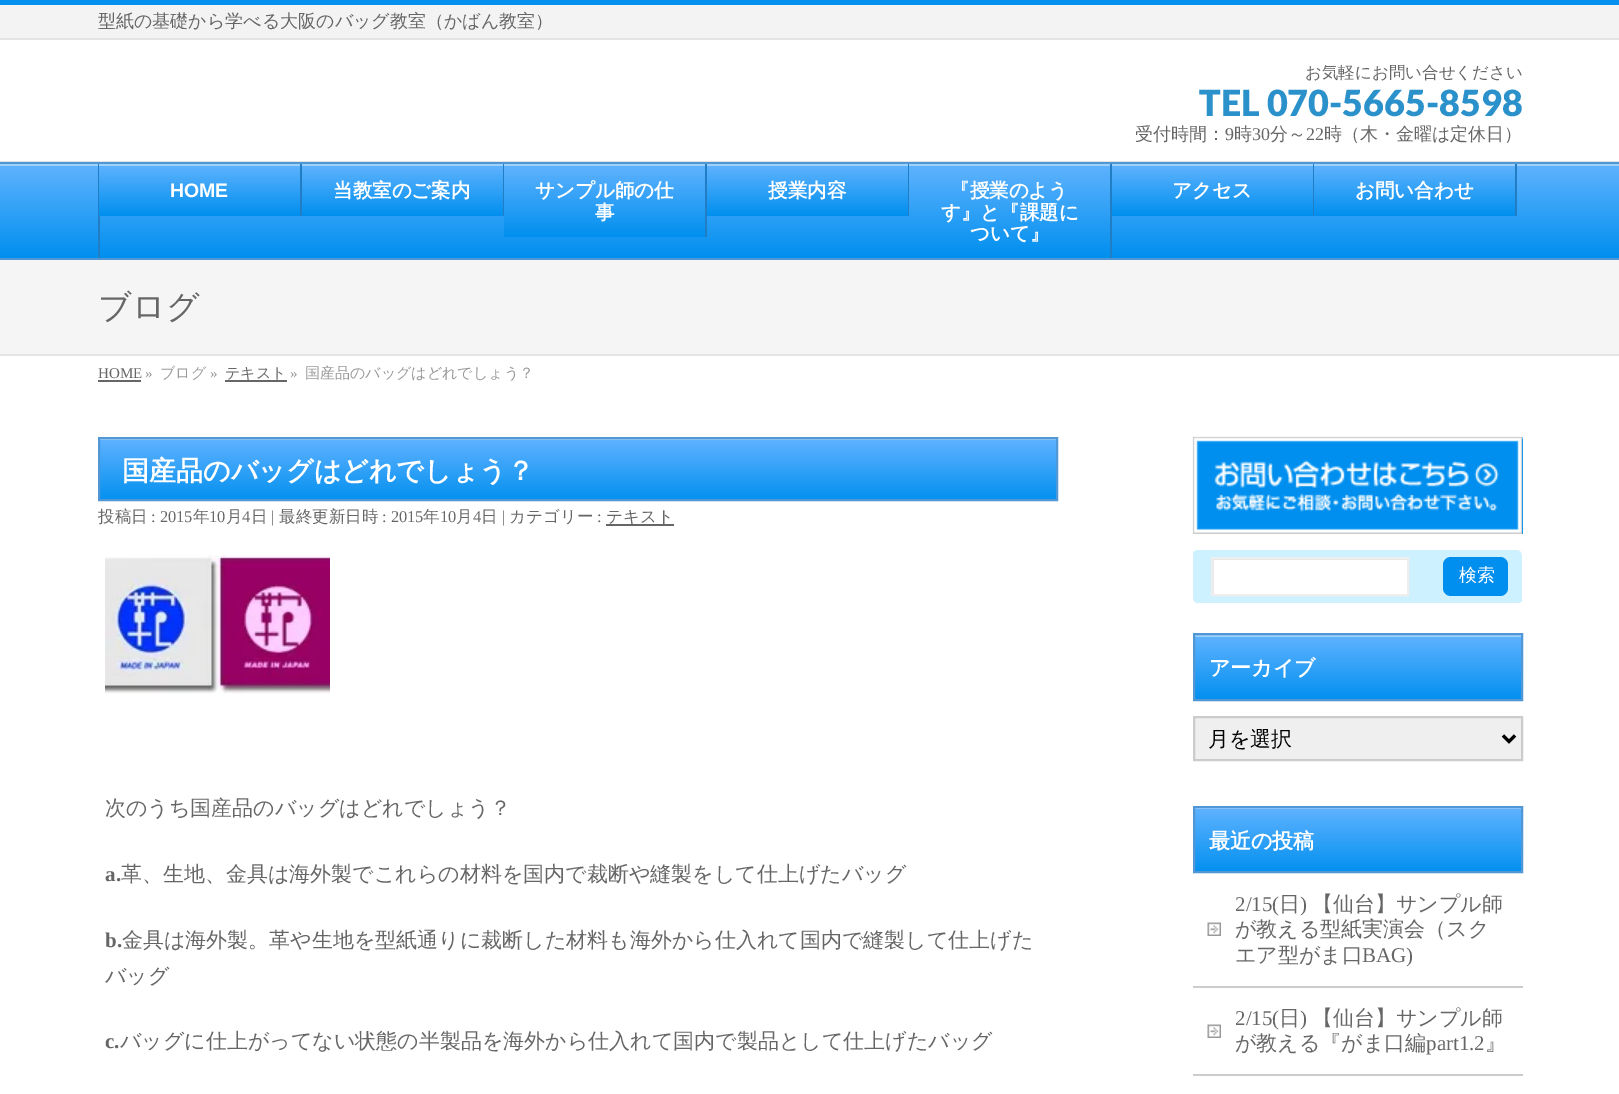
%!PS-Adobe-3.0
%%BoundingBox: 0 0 1619 1094
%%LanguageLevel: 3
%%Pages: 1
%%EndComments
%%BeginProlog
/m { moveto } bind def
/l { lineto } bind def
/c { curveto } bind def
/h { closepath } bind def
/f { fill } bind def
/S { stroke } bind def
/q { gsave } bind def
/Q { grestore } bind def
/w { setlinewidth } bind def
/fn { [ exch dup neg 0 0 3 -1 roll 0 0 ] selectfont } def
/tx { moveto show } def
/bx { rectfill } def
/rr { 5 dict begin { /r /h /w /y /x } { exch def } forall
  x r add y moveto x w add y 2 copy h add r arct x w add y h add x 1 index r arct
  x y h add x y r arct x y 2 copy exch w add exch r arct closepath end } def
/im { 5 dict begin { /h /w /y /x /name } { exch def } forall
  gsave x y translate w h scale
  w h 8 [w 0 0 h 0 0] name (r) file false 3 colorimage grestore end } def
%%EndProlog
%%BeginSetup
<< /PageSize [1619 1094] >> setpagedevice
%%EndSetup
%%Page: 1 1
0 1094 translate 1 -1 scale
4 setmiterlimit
1 setgray
0 0 1619 1094 bx
0.953 setgray
0 5 1619 33 bx
0.016 0.565 0.941 setrgbcolor
0 0 1619 5 bx
/WenQuanYiZenHei-Medium 18 fn
0.4 setgray
(型紙の基礎から学べる大阪のバッグ教室（かばん教室）) 98 27 tx
0.894 setgray
0 38 1619 2 bx
0 161 1619 1 bx
/WenQuanYiZenHei-Medium 16.5 fn
0.4 setgray
(お気軽にお問い合せください) 1305 78 tx
/Lato-Black 36 fn
0.169 0.569 0.796 setrgbcolor
(TEL 070-5665-8598) 1199 116 tx
/WenQuanYiZenHei-Medium 18 fn
0.4 setgray
(受付時間：) 1135 140 tx
/LiberationSerif-Regular 18 fn
(9) 1225 140 tx
/WenQuanYiZenHei-Medium 18 fn
(時) 1234 140 tx
/LiberationSerif-Regular 18 fn
(30) 1252 140 tx
/WenQuanYiZenHei-Medium 18 fn
(分～) 1270 140 tx
/LiberationSerif-Regular 18 fn
(22) 1306 140 tx
/WenQuanYiZenHei-Medium 18 fn
(時（木・金曜は定休日）) 1324 140 tx
q 0 166 m 1619 166 l 1619 258 l 0 258 l h clip newpath
<< /ShadingType 2 /ColorSpace /DeviceRGB /Coords [810 163 810 258] /Extend [true true] /Function << /FunctionType 2 /Domain [0 1] /C0 [0.38 0.702 1] /C1 [0 0.561 0.937] /N 1 >> >> shfill Q
0.624 0.82 1 setrgbcolor
0 164 1619 2 bx
0.318 0.592 0.835 setrgbcolor
0 162 1619 2 bx
0 258 1619 2 bx
0.129 0.494 0.769 setrgbcolor
98 164 2 94 bx
q 99 166 m 300 166 l 300 216 l 99 216 l h clip newpath
<< /ShadingType 2 /ColorSpace /DeviceRGB /Coords [200 164 200 216] /Extend [true true] /Function << /FunctionType 2 /Domain [0 1] /C0 [0.38 0.702 1] /C1 [0 0.561 0.937] /N 1 >> >> shfill Q
0.624 0.82 1 setrgbcolor
99 164 1 2 bx
0.129 0.494 0.769 setrgbcolor
300 164 2 52 bx
/LiberationSans-Bold 19.5 fn
1 setgray
(HOME) 170 197 tx
q 302 169 m 503 169 l 503 216 l 302 216 l h clip newpath
<< /ShadingType 2 /ColorSpace /DeviceRGB /Coords [403 164 403 216] /Extend [true true] /Function << /FunctionType 2 /Domain [0 1] /C0 [0.38 0.702 1] /C1 [0 0.561 0.937] /N 1 >> >> shfill Q
0.129 0.494 0.769 setrgbcolor
503 164 1 52 bx
/WenQuanYiZenHei-Bold 19.5 fn
1 setgray
(当教室のご案内) 333 197 tx
q 504 176 m 705 176 l 705 237 l 504 237 l h clip newpath
<< /ShadingType 2 /ColorSpace /DeviceRGB /Coords [605 164 605 237] /Extend [true true] /Function << /FunctionType 2 /Domain [0 1] /C0 [0.38 0.702 1] /C1 [0 0.561 0.937] /N 1 >> >> shfill Q
0.129 0.494 0.769 setrgbcolor
705 164 2 73 bx
1 setgray
(サンプル師の仕) 535 197 tx
(事) 595 219 tx
q 707 169 m 908 169 l 908 216 l 707 216 l h clip newpath
<< /ShadingType 2 /ColorSpace /DeviceRGB /Coords [808 164 808 216] /Extend [true true] /Function << /FunctionType 2 /Domain [0 1] /C0 [0.38 0.702 1] /C1 [0 0.561 0.937] /N 1 >> >> shfill Q
0.129 0.494 0.769 setrgbcolor
908 164 1 52 bx
1 setgray
(授業内容) 768 197 tx
0.129 0.494 0.769 setrgbcolor
1110 164 2 94 bx
1 setgray
(『授業のよう) 950 197 tx
(す』と『課題に) 941 219 tx
(ついて』) 970 240 tx
q 1112 169 m 1313 169 l 1313 216 l 1112 216 l h clip newpath
<< /ShadingType 2 /ColorSpace /DeviceRGB /Coords [1213 164 1213 216] /Extend [true true] /Function << /FunctionType 2 /Domain [0 1] /C0 [0.38 0.702 1] /C1 [0 0.561 0.937] /N 1 >> >> shfill Q
0.129 0.494 0.769 setrgbcolor
1313 164 1 52 bx
1 setgray
(アクセス) 1172 197 tx
q 1314 169 m 1515 169 l 1515 216 l 1314 216 l h clip newpath
<< /ShadingType 2 /ColorSpace /DeviceRGB /Coords [1415 164 1415 216] /Extend [true true] /Function << /FunctionType 2 /Domain [0 1] /C0 [0.38 0.702 1] /C1 [0 0.561 0.937] /N 1 >> >> shfill Q
0.129 0.494 0.769 setrgbcolor
1515 164 2 52 bx
1 setgray
(お問い合わせ) 1355 197 tx
0.961 setgray
0 260 1619 94 bx
0.898 setgray
0 354 1619 2 bx
/WenQuanYiZenHei-Medium 33 fn
0.4 setgray
(ブログ) 98 318 tx
/LiberationSerif-Regular 15 fn
(HOME) 98 378 tx
98 380 43 2 bx
0.6 setgray
(») 145 378 tx
/WenQuanYiZenHei-Medium 15 fn
(ブログ) 160 378 tx
/LiberationSerif-Regular 15 fn
(») 210 378 tx
/WenQuanYiZenHei-Medium 15 fn
0.4 setgray
(テキスト) 225 378 tx
225 380 62 2 bx
/LiberationSerif-Regular 15 fn
0.6 setgray
(») 290 378 tx
/WenQuanYiZenHei-Medium 15 fn
(国産品のバッグはどれでしょう？) 305 378 tx
q 100 440 m 1056 440 l 1056 499 l 100 499 l h clip newpath
<< /ShadingType 2 /ColorSpace /DeviceRGB /Coords [578 438 578 500] /Extend [true true] /Function << /FunctionType 2 /Domain [0 1] /C0 [0.38 0.702 1] /C1 [0.012 0.565 0.941] /N 1 >> >> shfill Q
0.624 0.82 1 setrgbcolor
99 439 957 1 bx
0.318 0.592 0.835 setrgbcolor
2 w
99 438 958 62 rectstroke
/WenQuanYiZenHei-Bold 27 fn
1 setgray
(国産品のバッグはどれでしょう？) 122 480 tx
/WenQuanYiZenHei-Medium 16.5 fn
0.4 setgray
(投稿日) 98 522 tx
/LiberationSerif-Regular 16.5 fn
(: 2015) 151 522 tx
/WenQuanYiZenHei-Medium 16.5 fn
(年) 193 522 tx
/LiberationSerif-Regular 16.5 fn
(10) 209 522 tx
/WenQuanYiZenHei-Medium 16.5 fn
(月) 226 522 tx
/LiberationSerif-Regular 16.5 fn
(4) 242 522 tx
/WenQuanYiZenHei-Medium 16.5 fn
(日) 251 522 tx
/LiberationSerif-Regular 16.5 fn
(|) 271 522 tx
/WenQuanYiZenHei-Medium 16.5 fn
(最終更新日時) 279 522 tx
/LiberationSerif-Regular 16.5 fn
(: 2015) 382 522 tx
/WenQuanYiZenHei-Medium 16.5 fn
(年) 423 522 tx
/LiberationSerif-Regular 16.5 fn
(10) 440 522 tx
/WenQuanYiZenHei-Medium 16.5 fn
(月) 456 522 tx
/LiberationSerif-Regular 16.5 fn
(4) 473 522 tx
/WenQuanYiZenHei-Medium 16.5 fn
(日) 481 522 tx
/LiberationSerif-Regular 16.5 fn
(|) 502 522 tx
/WenQuanYiZenHei-Medium 16.5 fn
(カテゴリー) 509 522 tx
/LiberationSerif-Regular 16.5 fn
(:) 597 522 tx
606 524 68 2 bx
/WenQuanYiZenHei-Medium 16.5 fn
(テキスト) 606 522 tx
(image0.raw) 105 555 225 139 im
/WenQuanYiZenHei-Medium 21 fn
(次のうち国産品のバッグはどれでしょう？) 105 815 tx
/LiberationSerif-Bold 21 fn
(a.) 105 881 tx
/WenQuanYiZenHei-Medium 21 fn
(革、生地、金具は海外製でこれらの材料を国内で裁断や縫製をして仕上げたバッグ) 121 881 tx
/LiberationSerif-Bold 21 fn
(b.) 105 947 tx
/WenQuanYiZenHei-Medium 21 fn
(金具は海外製。革や生地を型紙通りに裁断した材料も海外から仕入れて国内で縫製して仕上げた) 122 947 tx
(バッグ) 105 983 tx
/LiberationSerif-Bold 21 fn
(c.) 105 1048 tx
/WenQuanYiZenHei-Medium 21 fn
(バッグに仕上がってない状態の半製品を海外から仕入れて国内で製品として仕上げたバッグ) 120 1048 tx
0 0.561 0.937 setrgbcolor
1196 439 327 95 bx
0.502 0.78 0.969 setrgbcolor
1522 437 1 2 bx
(image1.raw) 1192 436 331 98 im
0.808 0.945 1 setrgbcolor
1193 549 330 54 5 rr f
1 setgray
1197 550 m 1518 550 l 1520 550 1522 553 1522 555 c 1522 601 l 1523 600 1523 599 1523 598 c 1523 554 l 1523 551 1521 549 1518 549 c 1198 549 l 1196 549 1194 550 1193 552 c 1194 551 1196 550 1197 550 c h f
1214 560 193 34 bx
q
1212 558 195 36 rectclip
0.902 setgray
1198 549 m 1195 549 1193 551 1193 554 c 1193 598 l 1193 601 1195 603 1198 603 c 1518 603 l 1521 603 1523 601 1523 598 c 1523 554 l 1523 551 1521 549 1518 549 c h 1214 560 m 1214 596 l 1408 596 l 1408 560 l h eofill
Q
0.933 setgray
1212 558 196 37 rectstroke
0 0.561 0.937 setrgbcolor
1443 557 65 39 8 rr f
/WenQuanYiZenHei-Medium 18 fn
1 setgray
(検索) 1459 581 tx
q 1195 637 m 1521 637 l 1521 699 l 1195 699 l h clip newpath
<< /ShadingType 2 /ColorSpace /DeviceRGB /Coords [1358 635 1358 699] /Extend [true true] /Function << /FunctionType 2 /Domain [0 1] /C0 [0.38 0.702 1] /C1 [0.012 0.565 0.941] /N 1 >> >> shfill Q
0.624 0.82 1 setrgbcolor
1194 635 327 2 bx
0.318 0.592 0.835 setrgbcolor
1194 634 328 66 rectstroke
/WenQuanYiZenHei-Bold 21 fn
1 setgray
(アーカイブ) 1209 675 tx
0.937 setgray
1194 717 m 1522 717 l 1522 760 l 1194 760 l h q f Q
0.8 setgray
S
0 setgray
3 w
1503 735.5 m 1509 741.5 l 1515 735.5 l S
/WenQuanYiZenHei-Medium 21 fn
(月を選択) 1208 746 tx
q 1195 809 m 1521 809 l 1521 871 l 1195 871 l h clip newpath
<< /ShadingType 2 /ColorSpace /DeviceRGB /Coords [1358 807 1358 872] /Extend [true true] /Function << /FunctionType 2 /Domain [0 1] /C0 [0.38 0.702 1] /C1 [0.012 0.565 0.941] /N 1 >> >> shfill Q
0.624 0.82 1 setrgbcolor
1194 808 327 1 bx
0.318 0.592 0.835 setrgbcolor
2 w
1194 807 328 65 rectstroke
/WenQuanYiZenHei-Bold 21 fn
1 setgray
(最近の投稿) 1209 848 tx
0.8 setgray
1193 986 330 2 bx
(image2.raw) 1207 922 14 14 im
/LiberationSerif-Regular 21 fn
0.4 setgray
(2/15\() 1235 911 tx
/WenQuanYiZenHei-Medium 21 fn
(日) 1279 911 tx
/LiberationSerif-Regular 21 fn
(\)) 1300 911 tx
/WenQuanYiZenHei-Medium 21 fn
(【仙台】サンプル師) 1312 911 tx
(が教える型紙実演会（スク) 1235 936 tx
(エア型がま口) 1235 962 tx
/LiberationSerif-Regular 21 fn
(BAG\)) 1362 962 tx
0.8 setgray
1193 1074 330 2 bx
(image2.raw) 1207 1024 14 14 im
0.4 setgray
(2/15\() 1235 1025 tx
/WenQuanYiZenHei-Medium 21 fn
(日) 1279 1025 tx
/LiberationSerif-Regular 21 fn
(\)) 1300 1025 tx
/WenQuanYiZenHei-Medium 21 fn
(【仙台】サンプル師) 1312 1025 tx
(が教える『がま口編) 1235 1050 tx
/LiberationSerif-Regular 21 fn
(part1.2) 1426 1050 tx
/WenQuanYiZenHei-Medium 21 fn
(』) 1485 1050 tx
showpage
%%EOF
